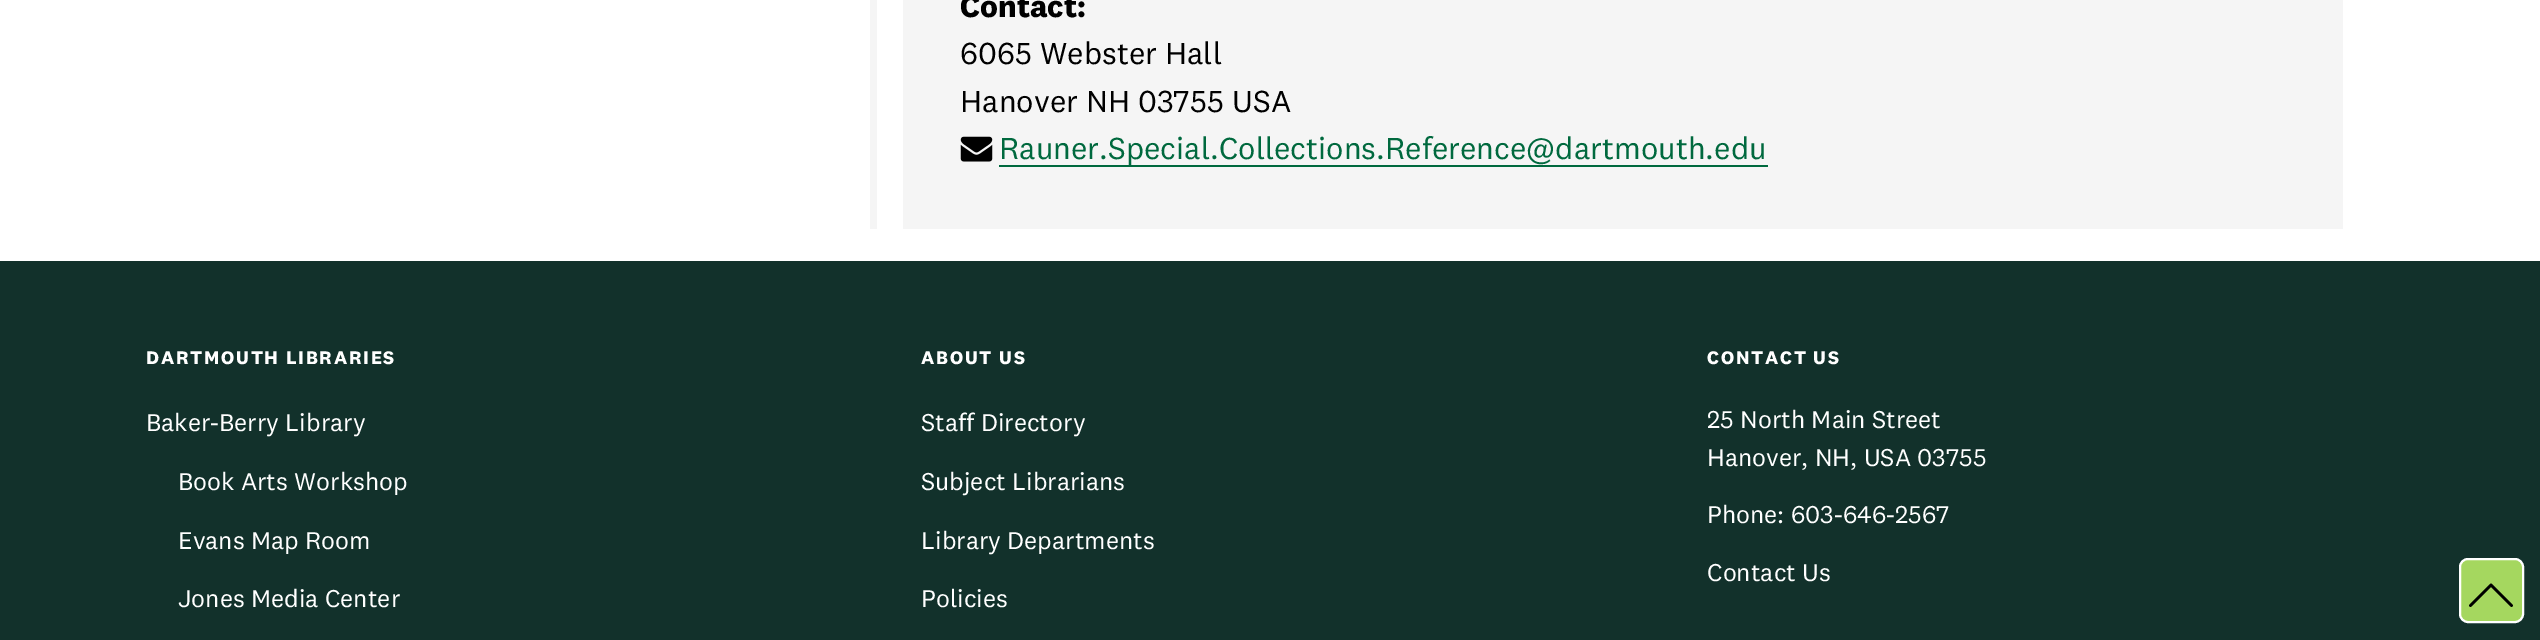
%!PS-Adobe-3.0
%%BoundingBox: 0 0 2540 640
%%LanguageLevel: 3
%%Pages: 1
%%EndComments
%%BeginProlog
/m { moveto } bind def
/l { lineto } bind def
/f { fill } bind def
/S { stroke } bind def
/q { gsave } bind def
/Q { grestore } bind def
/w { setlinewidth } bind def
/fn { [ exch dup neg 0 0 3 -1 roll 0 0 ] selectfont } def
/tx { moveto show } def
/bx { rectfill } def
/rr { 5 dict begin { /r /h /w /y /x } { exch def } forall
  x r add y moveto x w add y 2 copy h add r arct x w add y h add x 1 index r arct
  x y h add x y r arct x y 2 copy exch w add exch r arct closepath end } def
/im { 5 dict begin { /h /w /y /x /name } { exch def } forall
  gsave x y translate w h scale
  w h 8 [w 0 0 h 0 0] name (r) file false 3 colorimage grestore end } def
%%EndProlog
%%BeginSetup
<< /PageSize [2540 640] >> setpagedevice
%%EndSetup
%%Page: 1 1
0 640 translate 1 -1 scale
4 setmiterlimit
1 setgray
0 0 2540 640 bx
0.961 setgray
870 0 7 229 bx
903 0 1440 229 bx
/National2-Bold 31.5 fn
0 setgray
(Contact:) 960 17 tx
/National2-Regular 31.5 fn
(6065 Webster Hall) 960 64 tx
(Hanover NH 03755 USA) 960 112 tx
(image0.raw) 960 136 33 26 im
0 0.412 0.243 setrgbcolor
999 165 769 2 bx
(Rauner.Special.Collections.Reference@dartmouth.edu) 999 159 tx
0.071 0.192 0.169 setrgbcolor
0 261 2540 379 bx
/National2-Bold 18.9 fn
1 setgray
146 364 m 1.75 0 (DARTMOUTH LIBRARIES) ashow
/National2-Regular 25.25 fn
(Baker-Berry Library) 146 431 tx
(Book Arts Workshop) 178 490 tx
(Evans Map Room) 178 549 tx
(Jones Media Center) 178 607 tx
/National2-Bold 18.9 fn
921 364 m 1.75 0 (ABOUT US) ashow
/National2-Regular 25.25 fn
(Staff Directory) 921 431 tx
(Subject Librarians) 921 490 tx
(Library Departments) 921 549 tx
(Policies) 921 607 tx
/National2-Bold 18.9 fn
1707 364 m 1.75 0 (CONTACT US) ashow
/National2-Regular 25.25 fn
(25 North Main Street) 1707 428 tx
(Hanover, NH, USA 03755) 1707 466 tx
(Phone: 603-646-2567) 1707 523 tx
(Contact Us) 1707 581 tx
0.647 0.843 0.373 setrgbcolor
2460 559 63 63 8 rr q f Q
1 setgray
2 w
S
0 setgray
2.7 w
1 setlinecap
1 setlinejoin
2511.5 605.5 m 2491 585 l 2470.5 605.5 l S
showpage
%%EOF
